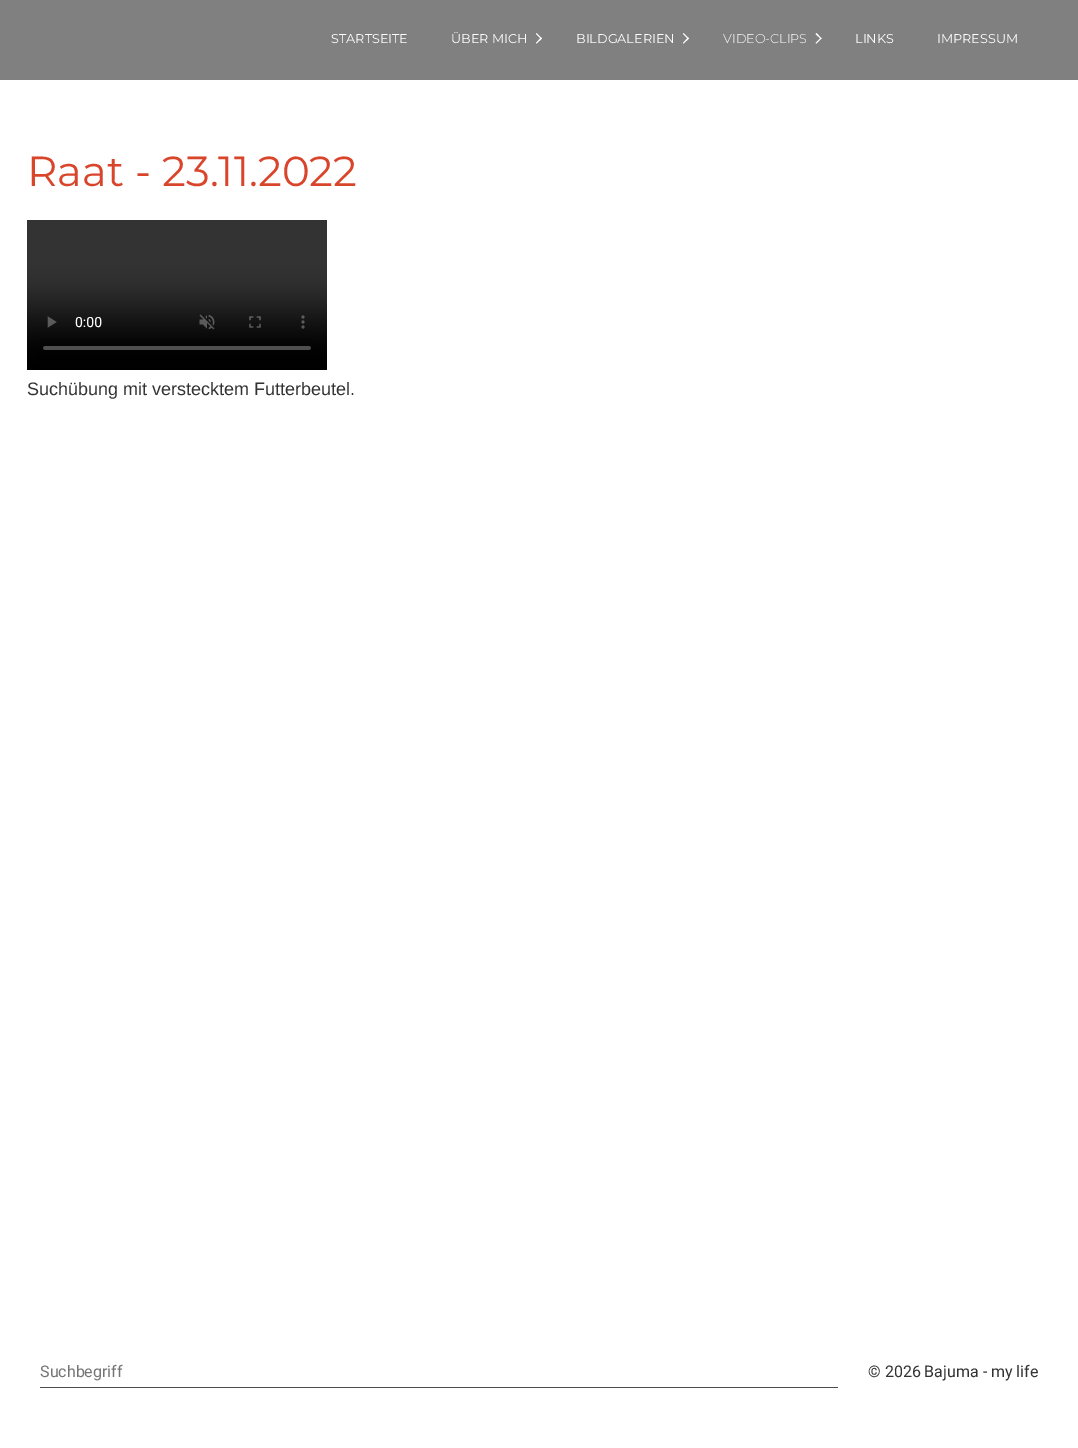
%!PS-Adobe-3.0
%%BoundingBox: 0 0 1078 1448
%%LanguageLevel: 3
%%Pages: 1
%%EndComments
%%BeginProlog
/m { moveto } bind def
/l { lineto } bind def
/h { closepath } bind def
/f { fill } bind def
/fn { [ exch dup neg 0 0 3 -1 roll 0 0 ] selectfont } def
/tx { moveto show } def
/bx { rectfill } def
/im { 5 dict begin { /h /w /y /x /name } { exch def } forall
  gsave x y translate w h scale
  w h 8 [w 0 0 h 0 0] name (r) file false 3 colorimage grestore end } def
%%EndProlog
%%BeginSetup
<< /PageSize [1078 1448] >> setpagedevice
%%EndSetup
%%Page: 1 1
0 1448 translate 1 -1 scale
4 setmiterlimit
1 setgray
0 0 1078 1448 bx
0.502 setgray
0 0 1078 80 bx
/Montserrat-Regular 12.75 fn
1 setgray
(STARTSEITE) 331 43 tx
(ÜBER MICH) 451 43 tx
536.5 33 m 542 38.5 l 541 39 l 536 34 l h f
541 37.5 m 542 38.5 l 536.5 43.5 l 536 43 l h f
(BILDGALERIEN) 576 43 tx
683.5 33 m 689 38.5 l 688 39 l 683 34 l h f
688 37.5 m 689 38.5 l 683.5 43.5 l 683 43 l h f
/Montserrat-Light 12.75 fn
(VIDEO-CLIPS) 723 43 tx
816.5 33 m 821.5 38.5 l 821 39 l 815.5 34 l h f
821 37.5 m 821.5 38.5 l 816.5 43.5 l 815.5 43 l h f
/Montserrat-Regular 12.75 fn
(LINKS) 855 43 tx
(IMPRESSUM) 937 43 tx
/Montserrat-Regular 42 fn
0.851 0.271 0.169 setrgbcolor
(Raat - 23.11.2022) 27 186 tx
(image0.raw) 27 220 300 150 im
/LiberationSans-Regular 18 fn
0.2 setgray
(Suchübung mit verstecktem Futterbeutel.) 27 395 tx
0.302 setgray
40 1387 798 1 bx
/Roboto-Regular 16 fn
0.459 setgray
(Suchbegriff) 40 1377 tx
0.2 setgray
(© 2026 Bajuma - my life) 868 1377 tx
showpage
%%EOF
